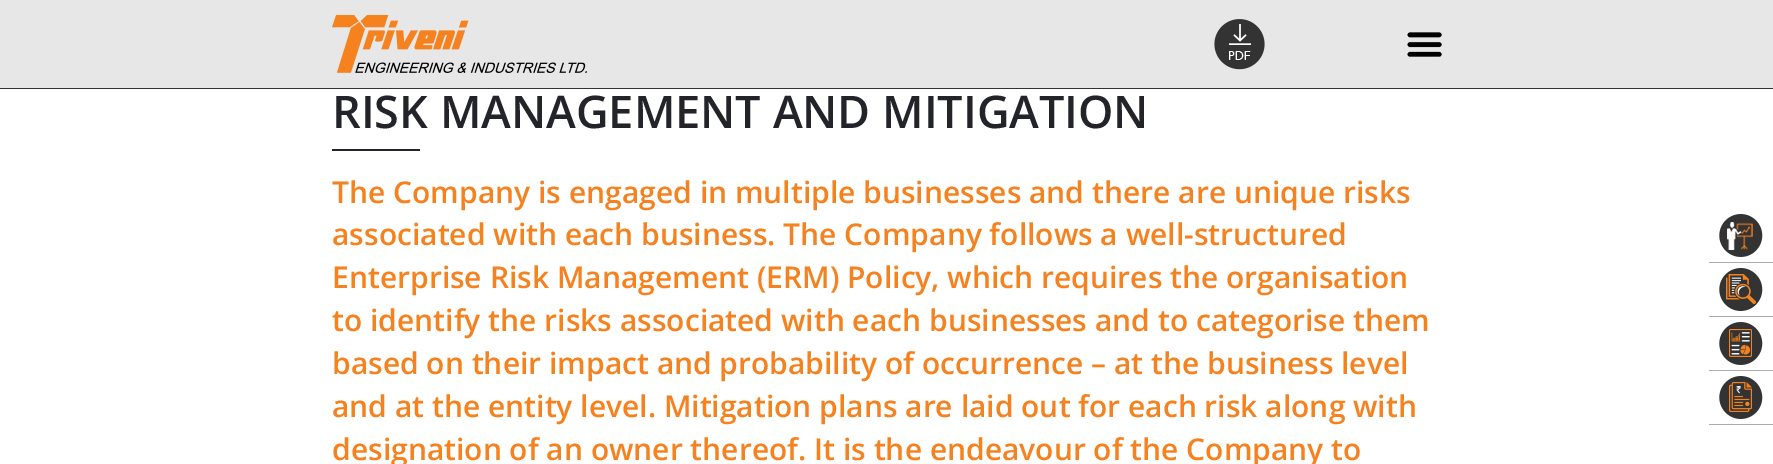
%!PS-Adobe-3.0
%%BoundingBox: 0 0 1773 464
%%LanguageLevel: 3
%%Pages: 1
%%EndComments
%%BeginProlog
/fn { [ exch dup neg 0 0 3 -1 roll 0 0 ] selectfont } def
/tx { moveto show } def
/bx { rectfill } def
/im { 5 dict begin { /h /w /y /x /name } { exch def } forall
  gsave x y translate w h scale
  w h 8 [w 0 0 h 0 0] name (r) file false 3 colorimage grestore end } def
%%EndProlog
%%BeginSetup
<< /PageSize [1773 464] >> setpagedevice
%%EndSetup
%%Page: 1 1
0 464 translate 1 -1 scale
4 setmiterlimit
1 setgray
0 0 1773 464 bx
0.906 setgray
0 0 1773 88 bx
0.2 setgray
0 88 1773 1 bx
(image0.raw) 332 15 255 58 im
(image1.raw) 1214 19 51 51 im
(image2.raw) 1407 32 35 25 im
/OpenSans-SemiBold 45 fn
0.137 0.141 0.161 setrgbcolor
(RISK MANAGEMENT AND MITIGATION) 332 128 tx
332 149 88 2 bx
/OpenSans-SemiBold 30 fn
0.961 0.51 0.122 setrgbcolor
(The Company is engaged in multiple businesses and there are unique risks) 332 203 tx
(associated with each business. The Company follows a well-structured) 332 245 tx
(Enterprise Risk Management \(ERM\) Policy, which requires the organisation) 332 288 tx
(to identify the risks associated with each businesses and to categorise them) 332 331 tx
(based on their impact and probability of occurrence – at the business level) 332 374 tx
(and at the entity level. Mitigation plans are laid out for each risk along with) 332 417 tx
(designation of an owner thereof. It is the endeavour of the Company to) 332 460 tx
0.675 setgray
1709 262 64 1 bx
(image3.raw) 1719 214 44 43 im
1709 316 64 1 bx
(image4.raw) 1719 268 44 43 im
1709 370 64 1 bx
(image5.raw) 1719 322 44 43 im
1709 424 64 1 bx
(image6.raw) 1719 376 44 43 im
showpage
%%EOF
